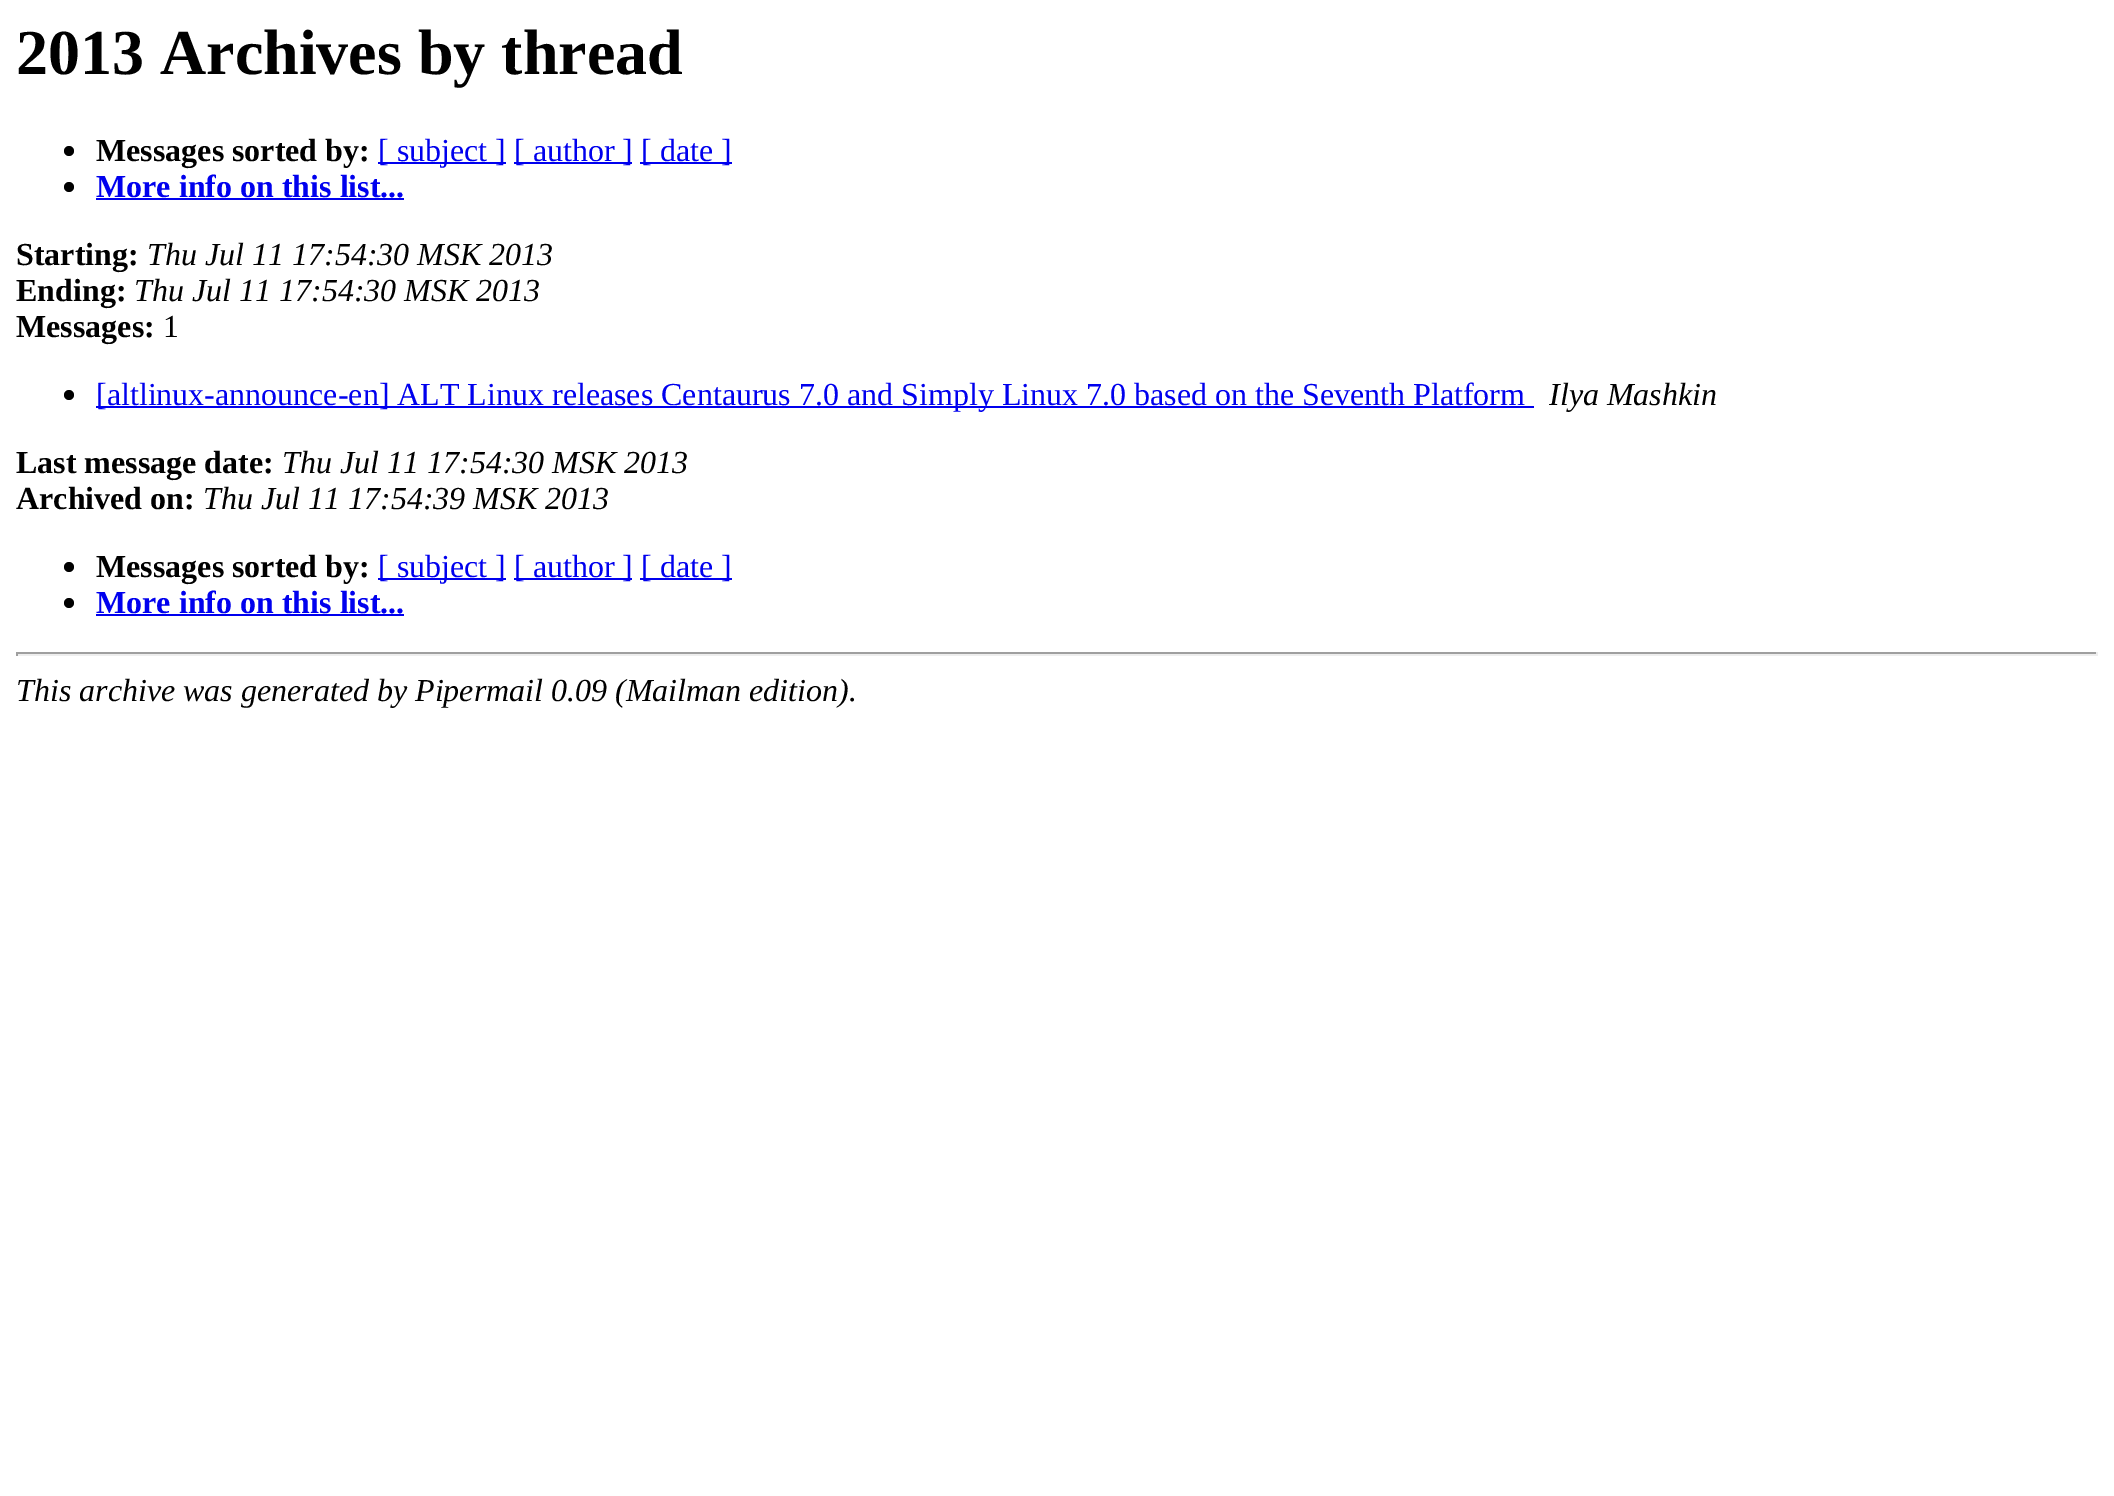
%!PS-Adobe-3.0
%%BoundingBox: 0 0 2114 1496
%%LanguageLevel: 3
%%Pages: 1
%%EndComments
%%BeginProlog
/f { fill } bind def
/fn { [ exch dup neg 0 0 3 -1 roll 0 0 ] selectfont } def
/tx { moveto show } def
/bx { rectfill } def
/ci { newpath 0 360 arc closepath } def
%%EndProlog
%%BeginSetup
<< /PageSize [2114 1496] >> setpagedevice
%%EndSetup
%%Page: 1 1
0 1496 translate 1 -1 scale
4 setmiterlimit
1 setgray
0 0 2114 1496 bx
/LiberationSerif-Bold 64 fn
0 setgray
(2013 Archives by thread) 16 74 tx
69 151 5 ci f
/LiberationSerif-Bold 32 fn
(Messages sorted by:) 96 161 tx
0 0 0.933 setrgbcolor
378 162 128 2 bx
/LiberationSerif-Regular 32 fn
([ subject ]) 378 161 tx
514 162 118 2 bx
([ author ]) 514 161 tx
640 162 92 2 bx
([ date ]) 641 161 tx
0 setgray
69 187 5 ci f
/LiberationSerif-Bold 32 fn
0 0 0.933 setrgbcolor
(More info on this list...) 96 197 tx
96 198 308 2 bx
0 setgray
(Starting:) 16 265 tx
/LiberationSerif-Italic 32 fn
(Thu Jul 11 17:54:30 MSK 2013) 147 265 tx
/LiberationSerif-Bold 32 fn
(Ending:) 16 301 tx
/LiberationSerif-Italic 32 fn
(Thu Jul 11 17:54:30 MSK 2013) 134 301 tx
/LiberationSerif-Bold 32 fn
(Messages:) 16 337 tx
/LiberationSerif-Regular 32 fn
(1) 163 337 tx
69 395 5 ci f
0 0 0.933 setrgbcolor
96 406 1438 2 bx
([altlinux-announce-en] ALT Linux releases Centaurus 7.0 and Simply Linux 7.0 based on the Seventh Platform) 96 405 tx
/LiberationSerif-Italic 32 fn
0 setgray
(Ilya Mashkin) 1549 405 tx
/LiberationSerif-Bold 32 fn
(Last message date:) 16 473 tx
/LiberationSerif-Italic 32 fn
(Thu Jul 11 17:54:30 MSK 2013) 282 473 tx
/LiberationSerif-Bold 32 fn
(Archived on:) 16 509 tx
/LiberationSerif-Italic 32 fn
(Thu Jul 11 17:54:39 MSK 2013) 203 509 tx
69 567 5 ci f
/LiberationSerif-Bold 32 fn
(Messages sorted by:) 96 577 tx
0 0 0.933 setrgbcolor
378 578 128 2 bx
/LiberationSerif-Regular 32 fn
([ subject ]) 378 577 tx
514 578 118 2 bx
([ author ]) 514 577 tx
640 578 92 2 bx
([ date ]) 641 577 tx
0 setgray
69 603 5 ci f
/LiberationSerif-Bold 32 fn
0 0 0.933 setrgbcolor
(More info on this list...) 96 613 tx
96 614 308 2 bx
0.624 setgray
16 652 2082 2 bx
0.933 setgray
2096 652 2 4 bx
16 654 2082 2 bx
0.624 setgray
16 652 2 4 bx
/LiberationSerif-Italic 32 fn
0 setgray
(This archive was generated by Pipermail 0.09 \(Mailman edition\).) 16 701 tx
showpage
%%EOF
